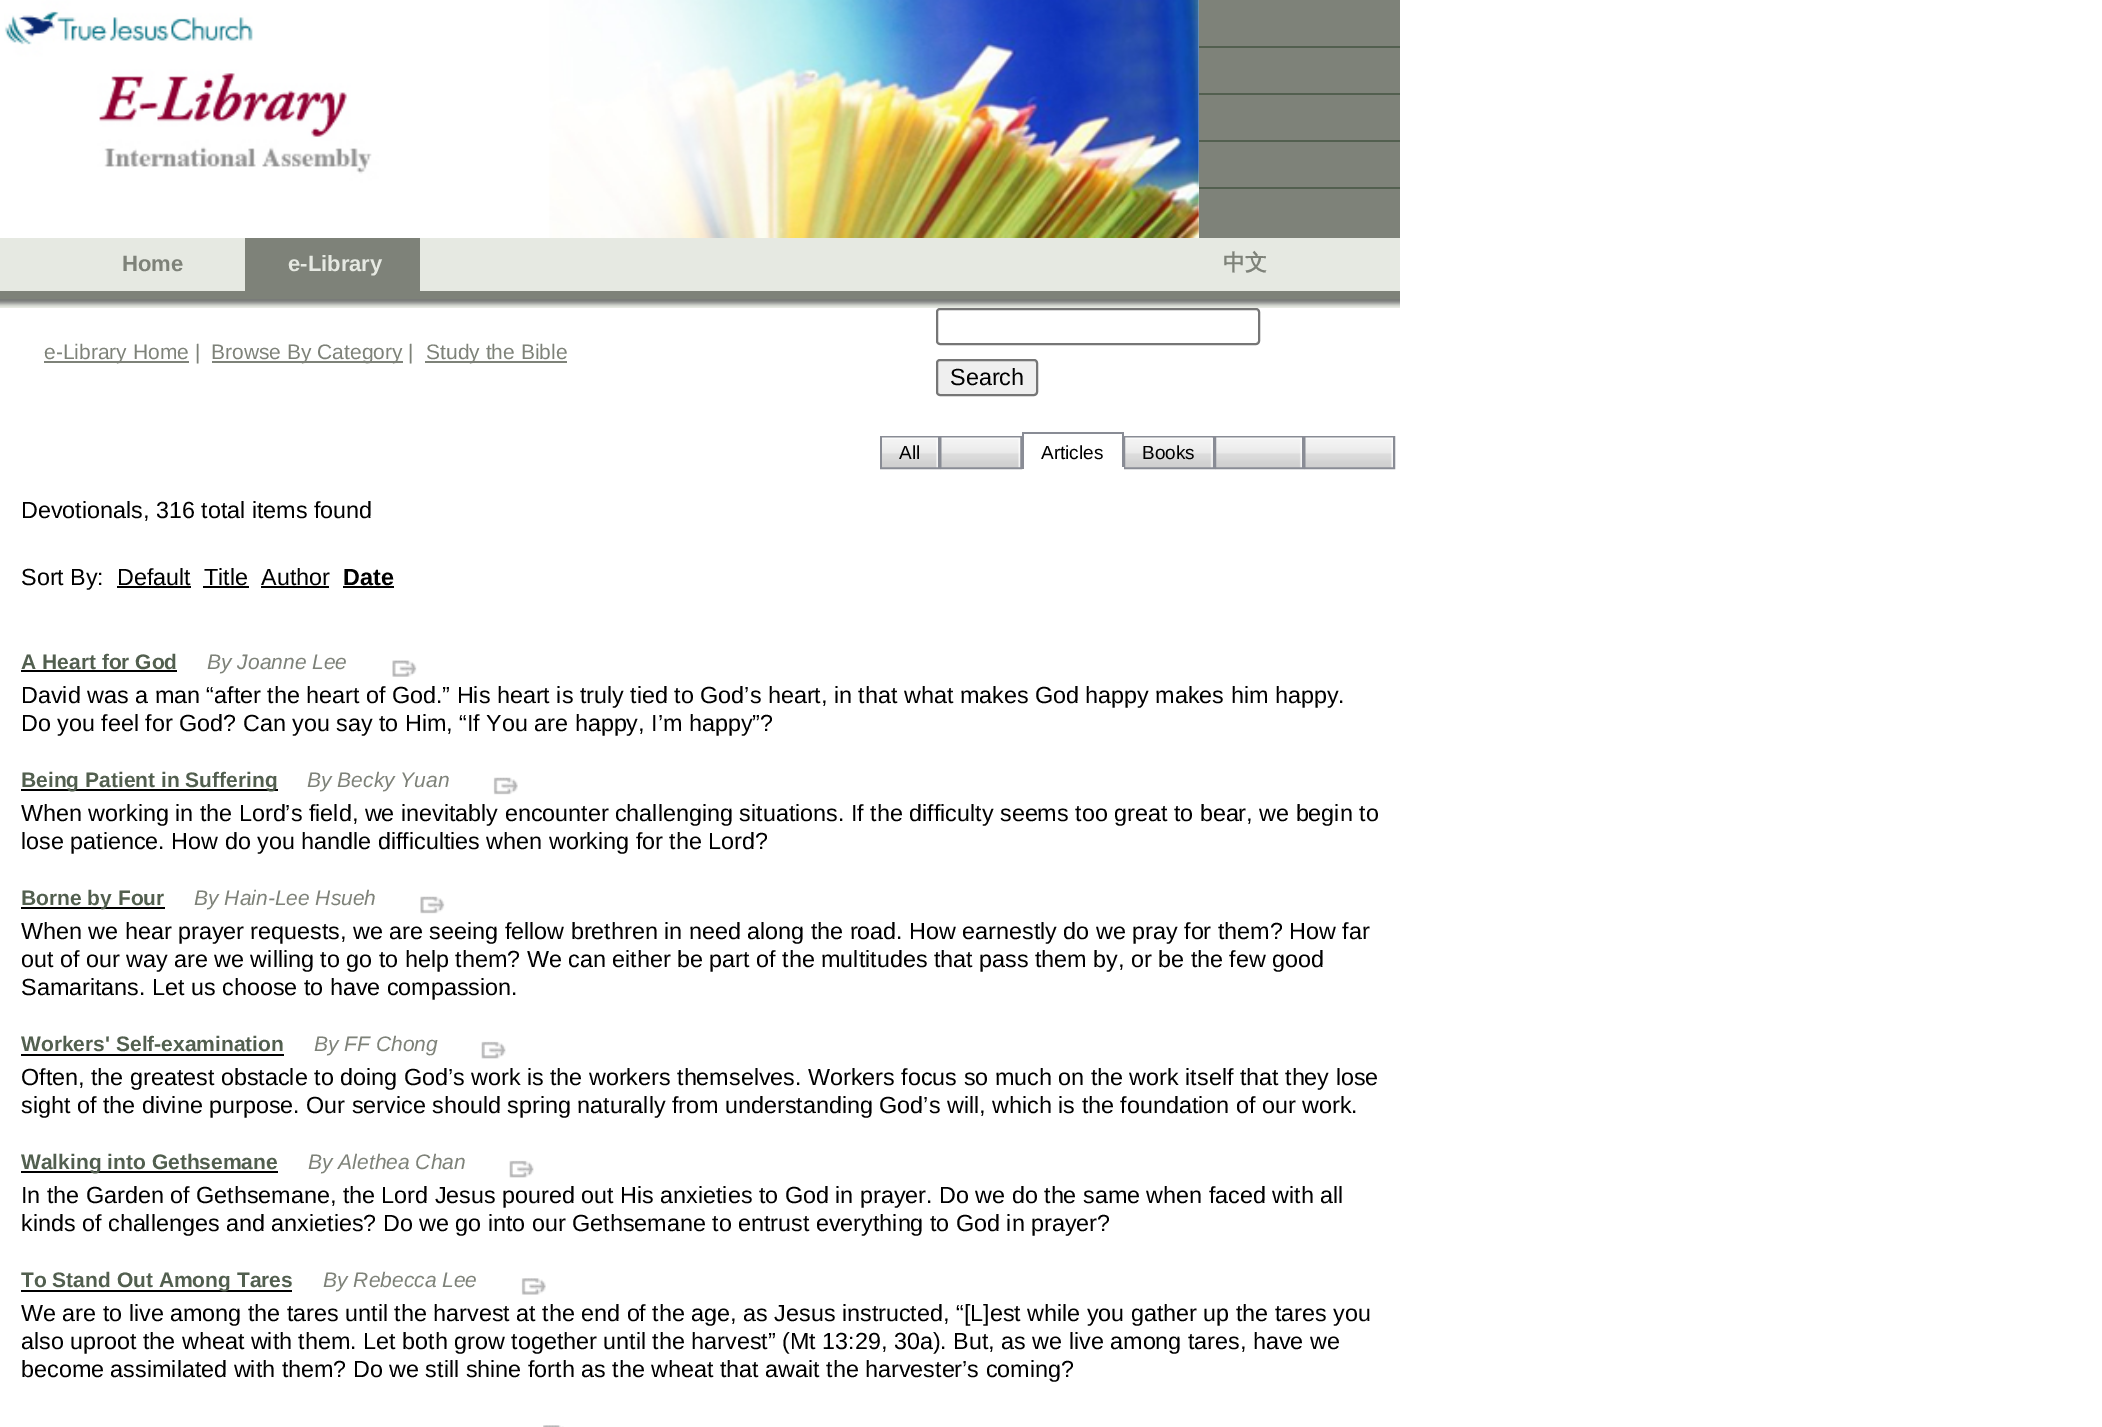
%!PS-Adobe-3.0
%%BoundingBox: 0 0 2102 1427
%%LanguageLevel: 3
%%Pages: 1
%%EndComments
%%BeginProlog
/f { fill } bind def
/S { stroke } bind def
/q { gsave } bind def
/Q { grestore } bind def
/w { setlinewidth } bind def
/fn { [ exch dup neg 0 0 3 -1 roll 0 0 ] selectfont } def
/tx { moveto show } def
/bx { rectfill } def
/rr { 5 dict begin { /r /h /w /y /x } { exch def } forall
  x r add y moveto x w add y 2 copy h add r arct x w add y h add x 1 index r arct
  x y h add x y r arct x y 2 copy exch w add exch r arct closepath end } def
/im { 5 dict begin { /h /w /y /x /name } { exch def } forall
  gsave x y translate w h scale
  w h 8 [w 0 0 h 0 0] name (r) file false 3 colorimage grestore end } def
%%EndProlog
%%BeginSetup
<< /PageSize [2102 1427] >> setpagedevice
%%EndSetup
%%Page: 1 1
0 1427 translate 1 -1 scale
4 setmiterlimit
1 setgray
0 0 2102 1427 bx
(image0.raw) 4 0 1195 238 im
0.494 0.51 0.475 setrgbcolor
1199 0 201 238 bx
0.322 0.373 0.31 setrgbcolor
1199 46 201 2 bx
1199 93 201 2 bx
1199 140 201 2 bx
1199 187 201 2 bx
0.902 0.914 0.886 setrgbcolor
0 238 1400 53 bx
/LiberationSans-Bold 22 fn
0.494 0.51 0.475 setrgbcolor
(Home) 122 271 tx
245 238 175 53 bx
0.902 0.914 0.886 setrgbcolor
(e-Library) 288 271 tx
/WenQuanYiZenHei-Bold 22 fn
0.494 0.51 0.475 setrgbcolor
(中文) 1223 270 tx
0 291 1400 9 bx
(image1.raw) 0 299 1400 9 im
44 361 145 2 bx
/LiberationSans-Regular 21 fn
(e-Library Home |) 44 359 tx
212 361 191 2 bx
(Browse By Category |) 211 359 tx
425 361 142 2 bx
(Study the Bible) 426 359 tx
0.463 setgray
2 w
937 309 322 35 3 rr S
0.937 setgray
937 360 100 35 3 rr q f Q
0.463 setgray
S
/LiberationSans-Regular 23.33 fn
0 setgray
(Search) 950 385 tx
0.537 0.549 0.584 setrgbcolor
881 437 58 31 rectstroke
(image2.raw) 882 437 56 31 im
/LiberationSans-Regular 19 fn
0 setgray
(All) 899 459 tx
0.537 0.549 0.584 setrgbcolor
941 437 80 31 rectstroke
(image3.raw) 941 437 80 31 im
1022 432 102 2 bx
1122 432 2 37 bx
1 setgray
1122 467 2 2 bx
0.537 0.549 0.584 setrgbcolor
1022 432 2 37 bx
0 setgray
(Articles) 1041 459 tx
(image4.raw) 1212 439 1 28 im
0.537 0.549 0.584 setrgbcolor
1125 437 89 31 rectstroke
(image5.raw) 1125 437 88 31 im
0 setgray
(Books) 1142 459 tx
0.537 0.549 0.584 setrgbcolor
1216 437 87 31 rectstroke
(image6.raw) 1216 437 86 31 im
1305 437 89 31 rectstroke
(image7.raw) 1305 437 88 31 im
/LiberationSans-Regular 23.33 fn
0 setgray
(Devotionals, 316 total items found) 21 518 tx
(Sort By:) 21 585 tx
(Default) 117 585 tx
117 586 74 2 bx
(Title) 204 585 tx
203 586 46 2 bx
(Author) 261 585 tx
261 586 68 2 bx
/LiberationSans-Bold 23.33 fn
(Date) 343 585 tx
343 586 51 2 bx
/LiberationSans-Bold 21 fn
0.322 0.373 0.31 setrgbcolor
(A Heart for God) 21 669 tx
0 setgray
21 670 156 2 bx
/LiberationSans-Italic 21 fn
0.494 0.51 0.475 setrgbcolor
(By Joanne Lee) 207 669 tx
(image8.raw) 392 660 25 17 im
/LiberationSans-Regular 23.33 fn
0 setgray
(David was a man “after the heart of God.” His heart is truly tied to God’s heart, in that what makes God happy makes him happy.) 21 703 tx
(Do you feel for God? Can you say to Him, “If You are happy, I’m happy”?) 21 731 tx
21 789 257 2 bx
/LiberationSans-Bold 21 fn
0.322 0.373 0.31 setrgbcolor
(Being Patient in Suffering) 21 787 tx
/LiberationSans-Italic 21 fn
0.494 0.51 0.475 setrgbcolor
(By Becky Yuan) 307 787 tx
(image9.raw) 493 777 25 18 im
/LiberationSans-Regular 23.33 fn
0 setgray
(When working in the Lord’s field, we inevitably encounter challenging situations. If the difficulty seems too great to bear, we begin to) 21 821 tx
(lose patience. How do you handle difficulties when working for the Lord?) 21 849 tx
21 907 144 2 bx
/LiberationSans-Bold 21 fn
0.322 0.373 0.31 setrgbcolor
(Borne by Four) 21 905 tx
/LiberationSans-Italic 21 fn
0.494 0.51 0.475 setrgbcolor
(By Hain-Lee Hsueh) 194 905 tx
(image10.raw) 420 896 25 18 im
/LiberationSans-Regular 23.33 fn
0 setgray
(When we hear prayer requests, we are seeing fellow brethren in need along the road. How earnestly do we pray for them? How far) 21 939 tx
(out of our way are we willing to go to help them? We can either be part of the multitudes that pass them by, or be the few good) 21 967 tx
(Samaritans. Let us choose to have compassion.) 21 995 tx
/LiberationSans-Bold 21 fn
0.322 0.373 0.31 setrgbcolor
(Workers' Self-examination) 21 1051 tx
0 setgray
21 1054 263 2 bx
/LiberationSans-Italic 21 fn
0.494 0.51 0.475 setrgbcolor
(By FF Chong) 314 1051 tx
(image11.raw) 481 1041 25 18 im
/LiberationSans-Regular 23.33 fn
0 setgray
(Often, the greatest obstacle to doing God’s work is the workers themselves. Workers focus so much on the work itself that they lose) 21 1085 tx
(sight of the divine purpose. Our service should spring naturally from understanding God’s will, which is the foundation of our work.) 21 1113 tx
21 1171 257 2 bx
/LiberationSans-Bold 21 fn
0.322 0.373 0.31 setrgbcolor
(Walking into Gethsemane) 21 1169 tx
/LiberationSans-Italic 21 fn
0.494 0.51 0.475 setrgbcolor
(By Alethea Chan) 308 1169 tx
(image12.raw) 509 1160 25 18 im
/LiberationSans-Regular 23.33 fn
0 setgray
(In the Garden of Gethsemane, the Lord Jesus poured out His anxieties to God in prayer. Do we do the same when faced with all) 21 1203 tx
(kinds of challenges and anxieties? Do we go into our Gethsemane to entrust everything to God in prayer?) 21 1231 tx
21 1290 271 2 bx
/LiberationSans-Bold 21 fn
0.322 0.373 0.31 setrgbcolor
(To Stand Out Among Tares) 21 1287 tx
/LiberationSans-Italic 21 fn
0.494 0.51 0.475 setrgbcolor
(By Rebecca Lee) 323 1287 tx
(image13.raw) 521 1278 25 17 im
/LiberationSans-Regular 23.33 fn
0 setgray
(We are to live among the tares until the harvest at the end of the age, as Jesus instructed, “[L]est while you gather up the tares you) 21 1321 tx
(also uproot the wheat with them. Let both grow together until the harvest” \(Mt 13:29, 30a\). But, as we live among tares, have we) 21 1349 tx
(become assimilated with them? Do we still shine forth as the wheat that await the harvester’s coming?) 21 1377 tx
(image14.raw) 543 1425 21 2 im
showpage
%%EOF
